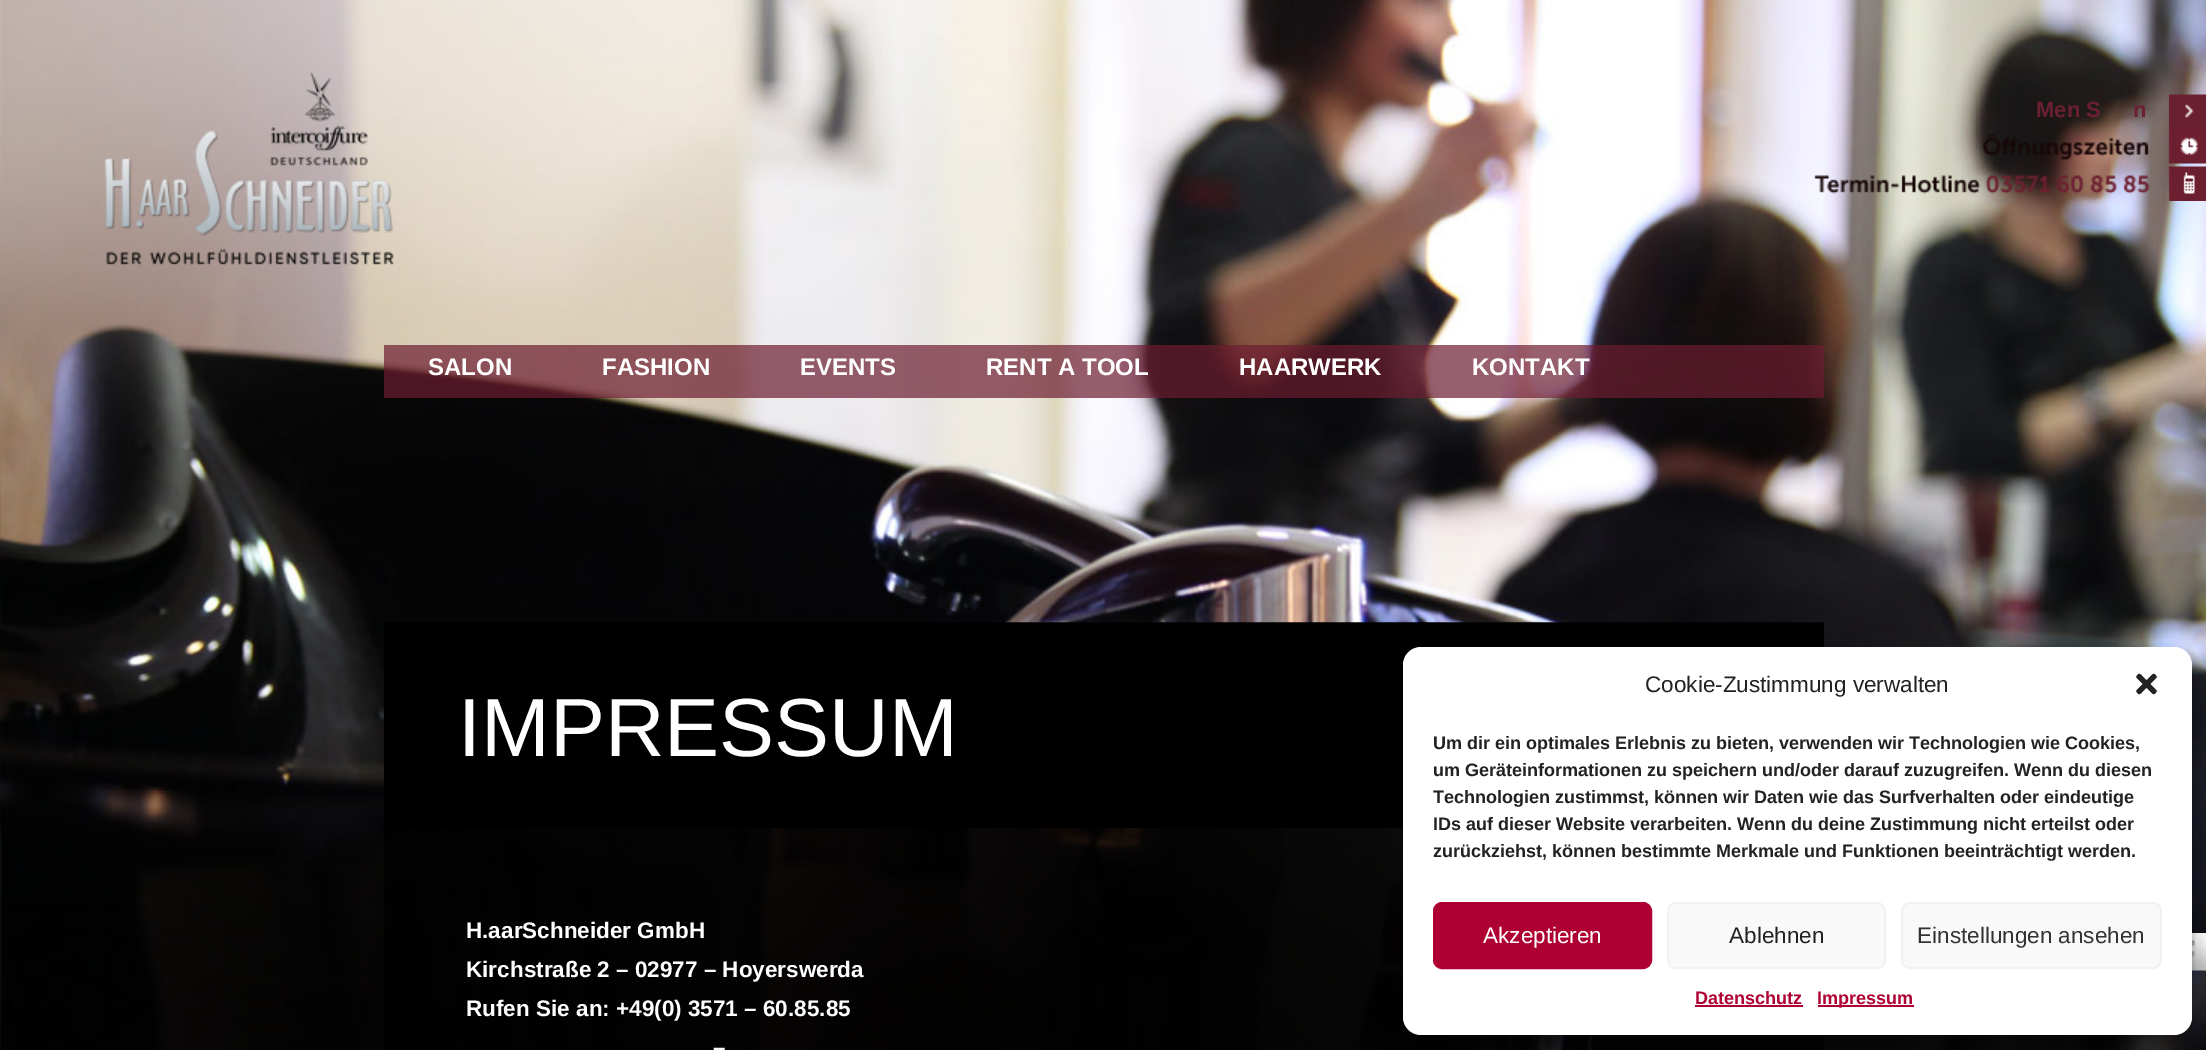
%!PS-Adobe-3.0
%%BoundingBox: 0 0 2206 1050
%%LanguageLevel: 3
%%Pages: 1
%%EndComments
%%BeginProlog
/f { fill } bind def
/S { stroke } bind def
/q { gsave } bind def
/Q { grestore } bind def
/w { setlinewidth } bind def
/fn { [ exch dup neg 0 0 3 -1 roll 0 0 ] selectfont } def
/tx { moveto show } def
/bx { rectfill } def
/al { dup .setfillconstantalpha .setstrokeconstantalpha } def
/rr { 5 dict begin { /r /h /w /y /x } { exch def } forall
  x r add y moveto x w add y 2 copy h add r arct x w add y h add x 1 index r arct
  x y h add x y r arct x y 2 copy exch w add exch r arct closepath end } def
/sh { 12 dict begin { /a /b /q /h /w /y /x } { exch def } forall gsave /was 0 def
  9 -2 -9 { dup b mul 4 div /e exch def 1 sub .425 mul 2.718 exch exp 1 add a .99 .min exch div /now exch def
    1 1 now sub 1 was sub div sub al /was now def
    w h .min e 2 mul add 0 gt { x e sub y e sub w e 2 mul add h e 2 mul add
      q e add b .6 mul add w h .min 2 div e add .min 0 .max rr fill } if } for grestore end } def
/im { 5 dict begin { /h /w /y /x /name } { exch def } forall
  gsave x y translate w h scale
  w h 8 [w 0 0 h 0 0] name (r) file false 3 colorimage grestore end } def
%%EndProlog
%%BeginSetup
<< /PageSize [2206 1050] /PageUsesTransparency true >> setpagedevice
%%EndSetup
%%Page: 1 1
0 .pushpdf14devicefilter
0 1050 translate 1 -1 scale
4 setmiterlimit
1 setgray
0 0 2206 1050 bx
(image0.raw) 0 0 2206 1050 im
(image1.raw) 104 72 290 193 im
/LiberationSans-Bold 22 fn
0.42 0.125 0.192 setrgbcolor
(Men S) 2036 117 tx
(n) 2133 117 tx
(image2.raw) 2169 94 37 35 im
(image3.raw) 1982 129 224 35 im
(image4.raw) 1814 166 392 35 im
0.7 al
0.424 0.11 0.188 setrgbcolor
384 345 1440 53 bx
/LiberationSans-Bold 24 fn
1 al
1 setgray
(SALON) 428 375 tx
(FASHION) 602 375 tx
(EVENTS) 800 375 tx
(RENT A TOOL) 986 375 tx
(HAARWERK) 1239 375 tx
(KONTAKT) 1472 375 tx
(image6.raw) 0 783 2206 267 im
0.75 al
0 setgray
384 622 1440 428 bx
1 al
384 623 1440 205 bx
/LiberationSans-Regular 82.5 fn
1 setgray
(IMPRESSUM) 458 756 tx
/LiberationSans-Bold 22.5 fn
(H.aarSchneider GmbH) 466 938 tx
(Kirchstraße 2 – 02977 – Hoyerswerda) 466 977 tx
(Rufen Sie an: +49\(0\) 3571 – 60.85.85) 466 1016 tx
(–) 713 1055 tx
(image7.raw) 2192 933 14 38 im
0 setgray
1403 656 789 388 18 4.5 0.23 sh
1403 662 789 388 18 15 0.19 sh
1 setgray
1403 647 789 388 18 rr f
/LiberationSans-Regular 22.5 fn
0.133 setgray
(Cookie-Zustimmung verwalten) 1645 692 tx
(image5.raw) 2136 673 21 22 im
/LiberationSans-Bold 18 fn
(Um dir ein optimales Erlebnis zu bieten, verwenden wir Technologien wie Cookies,) 1433 749 tx
(um Geräteinformationen zu speichern und/oder darauf zuzugreifen. Wenn du diesen) 1433 776 tx
q
1433 729 729 143 rectclip
(Technologien zustimmst, können wir Daten wie das Surfverhalten oder eindeutige) 1433 803 tx
Q
(IDs auf dieser Website verarbeiten. Wenn du deine Zustimmung nicht erteilst oder) 1433 830 tx
(zurückziehst, können bestimmte Merkmale und Funktionen beeinträchtigt werden.) 1433 857 tx
0.686 0 0.204 setrgbcolor
1434 903 217 65 8 rr q f Q
2 w
S
/LiberationSans-Regular 22.5 fn
1 setgray
(Akzeptieren) 1483 943 tx
0.976 setgray
1668 903 217 65 8 rr q f Q
0.949 setgray
S
0.133 setgray
(Ablehnen) 1729 943 tx
0.976 setgray
1902 903 259 65 8 rr q f Q
0.949 setgray
S
0.2 setgray
(Einstellungen ansehen) 1917 943 tx
/LiberationSans-Bold 18 fn
0.686 0 0.204 setrgbcolor
(Datenschutz) 1695 1004 tx
1695 1005 108 2 bx
1818 1005 96 2 bx
(Impressum) 1817 1004 tx
.poppdf14devicefilter showpage
%%EOF
